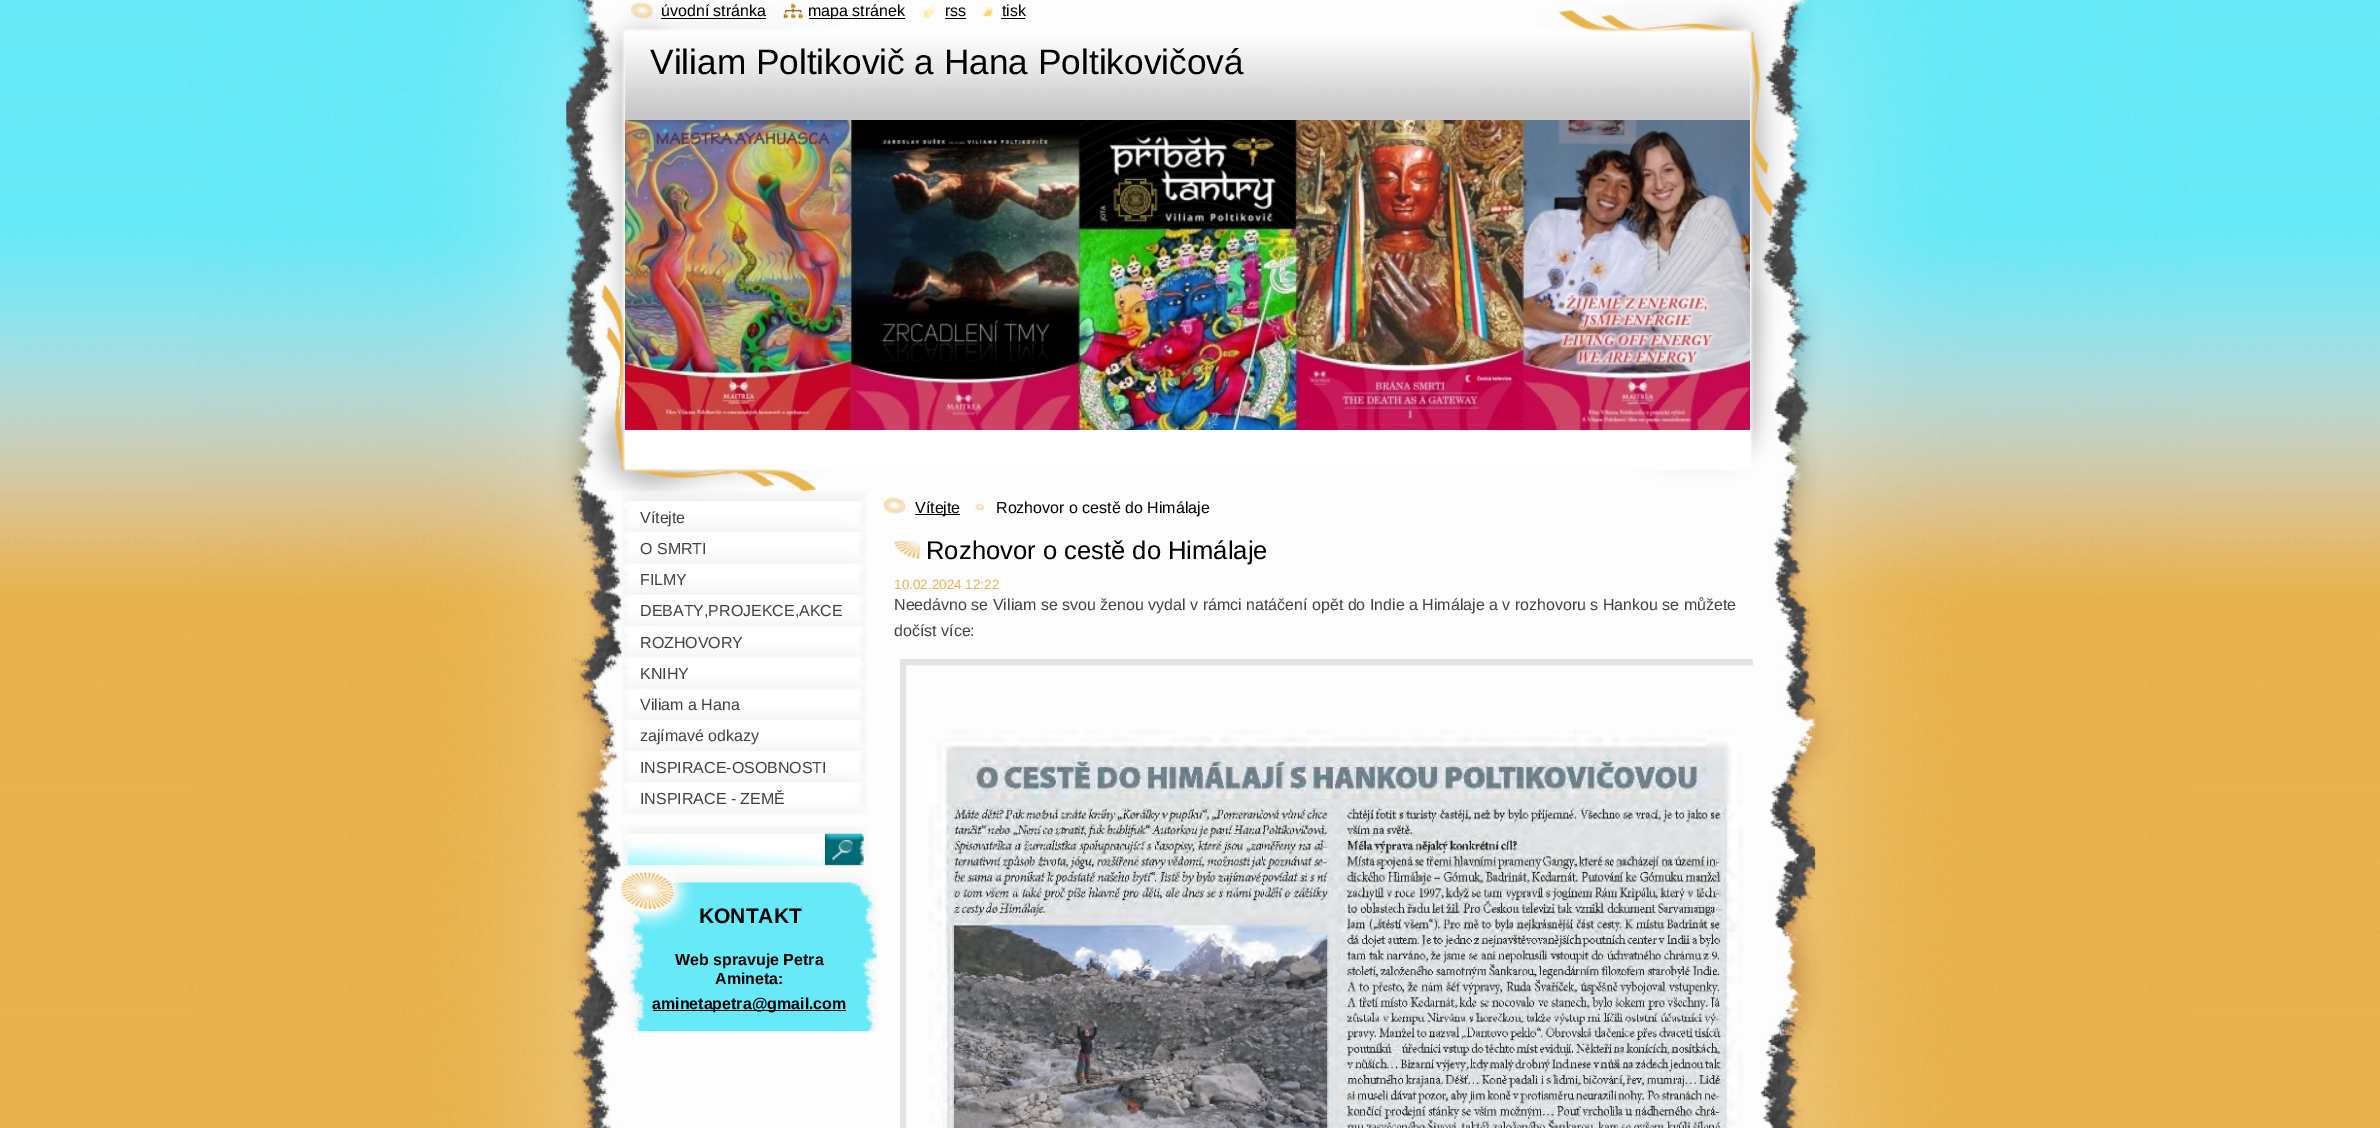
%!PS-Adobe-3.0
%%BoundingBox: 0 0 2380 1128
%%LanguageLevel: 3
%%Pages: 1
%%EndComments
%%BeginProlog
/q { gsave } bind def
/Q { grestore } bind def
/w { setlinewidth } bind def
/fn { [ exch dup neg 0 0 3 -1 roll 0 0 ] selectfont } def
/tx { moveto show } def
/bx { rectfill } def
/im { 5 dict begin { /h /w /y /x /name } { exch def } forall
  gsave x y translate w h scale
  w h 8 [w 0 0 h 0 0] name (r) file false 3 colorimage grestore end } def
%%EndProlog
%%BeginSetup
<< /PageSize [2380 1128] >> setpagedevice
%%EndSetup
%%Page: 1 1
0 1128 translate 1 -1 scale
4 setmiterlimit
0.91 0.698 0.298 setrgbcolor
0 0 2380 1128 bx
(image0.raw) 0 0 2380 1090 im
(image1.raw) 190 0 2000 1128 im
(image8.raw) 622 491 245 10 im
(image6.raw) 588 2 1196 490 im
(image2.raw) 630 2 23 17 im
/LiberationSans-Regular 16 fn
0 setgray
(úvodní stránka) 661 16 tx
661 18 105 1 bx
(image3.raw) 783 2 21 17 im
809 18 96 1 bx
(mapa stránek) 808 16 tx
(image4.raw) 922 3 16 16 im
(rss) 945 16 tx
945 18 21 1 bx
(image5.raw) 982 6 11 11 im
(tisk) 1002 16 tx
1001 18 24 1 bx
/LiberationSans-Regular 35.25 fn
(Viliam Poltikovič a Hana Poltikovičová) 650 74 tx
(image7.raw) 625 120 1125 310 im
(image9.raw) 622 502 245 30 im
/LiberationSans-Regular 16 fn
0.271 0.255 0.263 setrgbcolor
(Vítejte) 640 523 tx
(image10.raw) 622 533 245 31 im
(O SMRTI) 640 554 tx
(image11.raw) 621 564 246 31 im
(FILMY) 640 585 tx
(image12.raw) 621 595 246 31 im
(DEBATY,PROJEKCE,AKCE) 640 616 tx
(image13.raw) 621 627 246 30 im
(ROZHOVORY) 640 648 tx
(image10.raw) 622 658 245 31 im
(KNIHY) 640 679 tx
(image14.raw) 622 689 245 31 im
(Viliam a Hana) 640 710 tx
(image15.raw) 622 720 245 31 im
(zajímavé odkazy) 640 741 tx
(image9.raw) 622 752 245 30 im
(INSPIRACE-OSOBNOSTI) 640 773 tx
(image10.raw) 622 783 245 31 im
(INSPIRACE - ZEMĚ) 640 804 tx
(image18.raw) 621 872 257 160 im
(image16.raw) 621 826 204 47 im
(image17.raw) 825 826 43 41 im
/LiberationSans-Bold 21 fn
0 setgray
(KONTAKT) 699 923 tx
/LiberationSans-Bold 16 fn
(Web spravuje Petra) 675 965 tx
(Amineta:) 715 984 tx
653 1010 147 1 bx
(aminetapetra@gmail.com) 652 1009 tx
800 1010 46 1 bx
(image19.raw) 883 497 22 17 im
915 514 45 1 bx
/LiberationSans-Regular 16 fn
(Vítejte) 915 513 tx
(image20.raw) 975 503 10 7 im
(Rozhovor o cestě do Himálaje) 996 513 tx
(image21.raw) 893 541 27 18 im
/LiberationSans-Regular 25.6 fn
(Rozhovor o cestě do Himálaje) 926 559 tx
/LiberationSans-Regular 13.5 fn
0.91 0.694 0.29 setrgbcolor
(10.02.2024 12:22) 894 589 tx
/LiberationSans-Regular 16 fn
0.271 0.255 0.263 setrgbcolor
(Needávno se Viliam se svou ženou vydal v rámci natáčení opět do Indie a Himálaje a v rozhovoru s Hankou se můžete) 894 610 tx
(dočíst více:) 894 636 tx
q
890 535 863 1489 rectclip
0.89 setgray
6 w
903 662 880 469 rectstroke
Q
(image22.raw) 928 727 815 401 im
showpage
%%EOF
